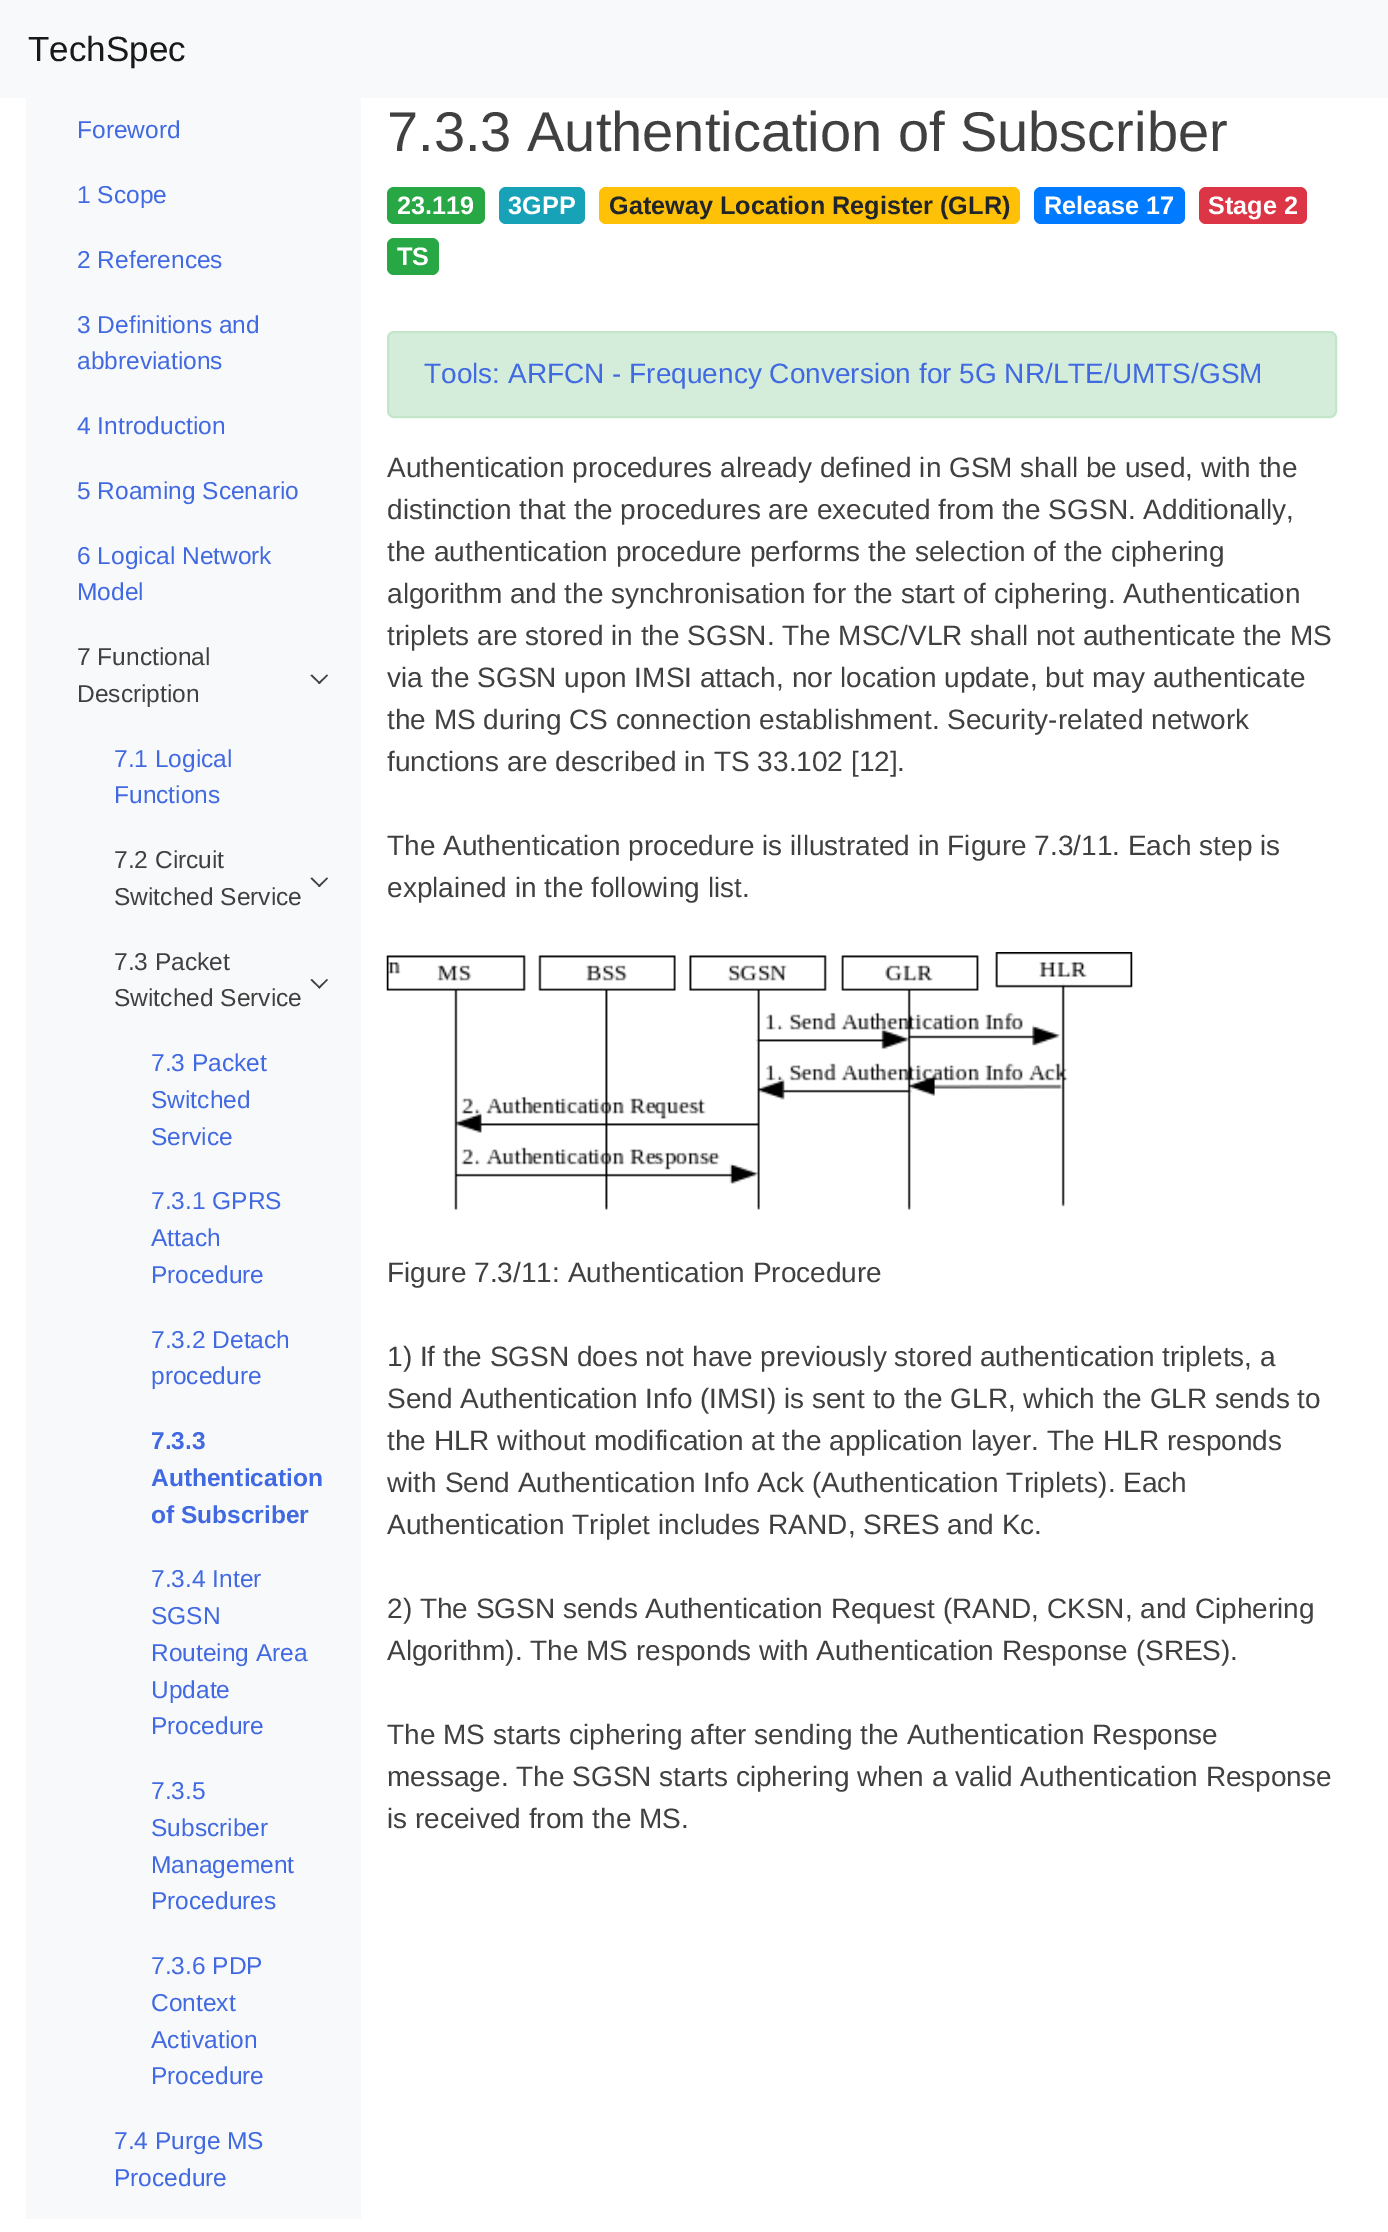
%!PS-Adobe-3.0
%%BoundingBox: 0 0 1388 2232
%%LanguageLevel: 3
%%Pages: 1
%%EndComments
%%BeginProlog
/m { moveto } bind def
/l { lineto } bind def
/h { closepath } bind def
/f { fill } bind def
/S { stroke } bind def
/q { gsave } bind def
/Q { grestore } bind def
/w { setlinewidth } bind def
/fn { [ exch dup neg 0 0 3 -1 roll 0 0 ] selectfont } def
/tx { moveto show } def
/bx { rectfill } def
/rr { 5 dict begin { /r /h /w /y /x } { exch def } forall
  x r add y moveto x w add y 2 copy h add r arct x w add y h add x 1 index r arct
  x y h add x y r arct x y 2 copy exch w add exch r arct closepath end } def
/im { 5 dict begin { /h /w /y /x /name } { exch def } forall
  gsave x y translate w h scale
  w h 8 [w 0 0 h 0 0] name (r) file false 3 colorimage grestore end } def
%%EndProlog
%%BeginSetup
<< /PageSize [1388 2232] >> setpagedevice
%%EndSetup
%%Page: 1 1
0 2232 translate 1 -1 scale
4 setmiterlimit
1 setgray
0 0 1388 2232 bx
0.973 0.976 0.98 setrgbcolor
0 0 1388 98 bx
/LiberationSans-Regular 35 fn
0.098 setgray
(TechSpec) 28 61 tx
0.973 0.976 0.98 setrgbcolor
26 98 335 2121 bx
/LiberationSans-Regular 24.5 fn
0.255 0.412 0.882 setrgbcolor
(Foreword) 77 138 tx
(1 Scope) 77 203 tx
(2 References) 77 268 tx
(3 Definitions and) 77 333 tx
(abbreviations) 77 369 tx
(4 Introduction) 77 434 tx
(5 Roaming Scenario) 77 499 tx
(6 Logical Network) 77 564 tx
(Model) 77 600 tx
0.251 setgray
(7 Functional) 77 665 tx
319.5 684 m 310.5 675.5 l 312 674.5 l 320.5 683 l h f
319.5 684 m 318 683 l 327 674.5 l 328 675.5 l h f
(Description) 77 702 tx
0.255 0.412 0.882 setrgbcolor
(7.1 Logical) 114 767 tx
(Functions) 114 803 tx
0.251 setgray
(7.2 Circuit) 114 868 tx
319.5 887 m 310.5 878.5 l 312 877.5 l 320.5 886 l h f
319.5 887 m 318 886 l 327 877.5 l 328 878.5 l h f
(Switched Service) 114 905 tx
(7.3 Packet) 114 970 tx
319.5 988.5 m 310.5 980 l 312 979 l 320.5 987.5 l h f
319.5 988.5 m 318 987.5 l 327 979 l 328 980 l h f
(Switched Service) 114 1006 tx
0.255 0.412 0.882 setrgbcolor
(7.3 Packet) 151 1071 tx
(Switched) 151 1108 tx
(Service) 151 1145 tx
(7.3.1 GPRS) 151 1209 tx
(Attach) 151 1246 tx
(Procedure) 151 1283 tx
(7.3.2 Detach) 151 1348 tx
(procedure) 151 1384 tx
/LiberationSans-Bold 24.5 fn
(7.3.3) 151 1449 tx
(Authentication) 151 1486 tx
(of Subscriber) 151 1523 tx
/LiberationSans-Regular 24.5 fn
(7.3.4 Inter) 151 1587 tx
(SGSN) 151 1624 tx
(Routeing Area) 151 1661 tx
(Update) 151 1698 tx
(Procedure) 151 1734 tx
(7.3.5) 151 1799 tx
(Subscriber) 151 1836 tx
(Management) 151 1873 tx
(Procedures) 151 1909 tx
(7.3.6 PDP) 151 1974 tx
(Context) 151 2011 tx
(Activation) 151 2048 tx
(Procedure) 151 2084 tx
(7.4 Purge MS) 114 2149 tx
(Procedure) 114 2186 tx
/LiberationSans-Regular 56 fn
0.251 setgray
(7.3.3 Authentication of Subscriber) 387 151 tx
0.157 0.655 0.271 setrgbcolor
387 187 98 37 7 rr f
/LiberationSans-Bold 25.25 fn
1 setgray
(23.119) 397 214 tx
0.09 0.635 0.722 setrgbcolor
499 187 86 37 7 rr f
1 setgray
(3GPP) 508 214 tx
1 0.757 0.027 setrgbcolor
599 187 421 37 7 rr f
0.129 0.145 0.161 setrgbcolor
(Gateway Location Register \(GLR\)) 609 214 tx
0 0.482 1 setrgbcolor
1034 187 151 37 7 rr f
1 setgray
(Release 17) 1044 214 tx
0.863 0.208 0.271 setrgbcolor
1199 187 108 37 7 rr f
1 setgray
(Stage 2) 1208 214 tx
0.157 0.655 0.271 setrgbcolor
387 238 52 37 7 rr f
1 setgray
(TS) 397 265 tx
0.831 0.929 0.855 setrgbcolor
388 332 948 85 6 rr q f Q
0.765 0.902 0.796 setrgbcolor
2 w
S
/LiberationSans-Regular 28 fn
0.255 0.412 0.882 setrgbcolor
(Tools: ARFCN - Frequency Conversion for 5G NR/LTE/UMTS/GSM) 424 383 tx
0.251 setgray
(Authentication procedures already defined in GSM shall be used, with the) 387 477 tx
(distinction that the procedures are executed from the SGSN. Additionally,) 387 519 tx
(the authentication procedure performs the selection of the ciphering) 387 561 tx
(algorithm and the synchronisation for the start of ciphering. Authentication) 387 603 tx
(triplets are stored in the SGSN. The MSC/VLR shall not authenticate the MS) 387 645 tx
(via the SGSN upon IMSI attach, nor location update, but may authenticate) 387 687 tx
(the MS during CS connection establishment. Security-related network) 387 729 tx
(functions are described in TS 33.102 [12].) 387 771 tx
(The Authentication procedure is illustrated in Figure 7.3/11. Each step is) 387 855 tx
(explained in the following list.) 387 897 tx
(image0.raw) 386 952 747 259 im
(Figure 7.3/11: Authentication Procedure) 387 1282 tx
(1\) If the SGSN does not have previously stored authentication triplets, a) 387 1366 tx
(Send Authentication Info \(IMSI\) is sent to the GLR, which the GLR sends to) 387 1408 tx
(the HLR without modification at the application layer. The HLR responds) 387 1450 tx
(with Send Authentication Info Ack \(Authentication Triplets\). Each) 387 1492 tx
(Authentication Triplet includes RAND, SRES and Kc.) 387 1534 tx
(2\) The SGSN sends Authentication Request \(RAND, CKSN, and Ciphering) 387 1618 tx
(Algorithm\). The MS responds with Authentication Response \(SRES\).) 387 1660 tx
(The MS starts ciphering after sending the Authentication Response) 387 1744 tx
(message. The SGSN starts ciphering when a valid Authentication Response) 387 1786 tx
(is received from the MS.) 387 1828 tx
showpage
%%EOF
